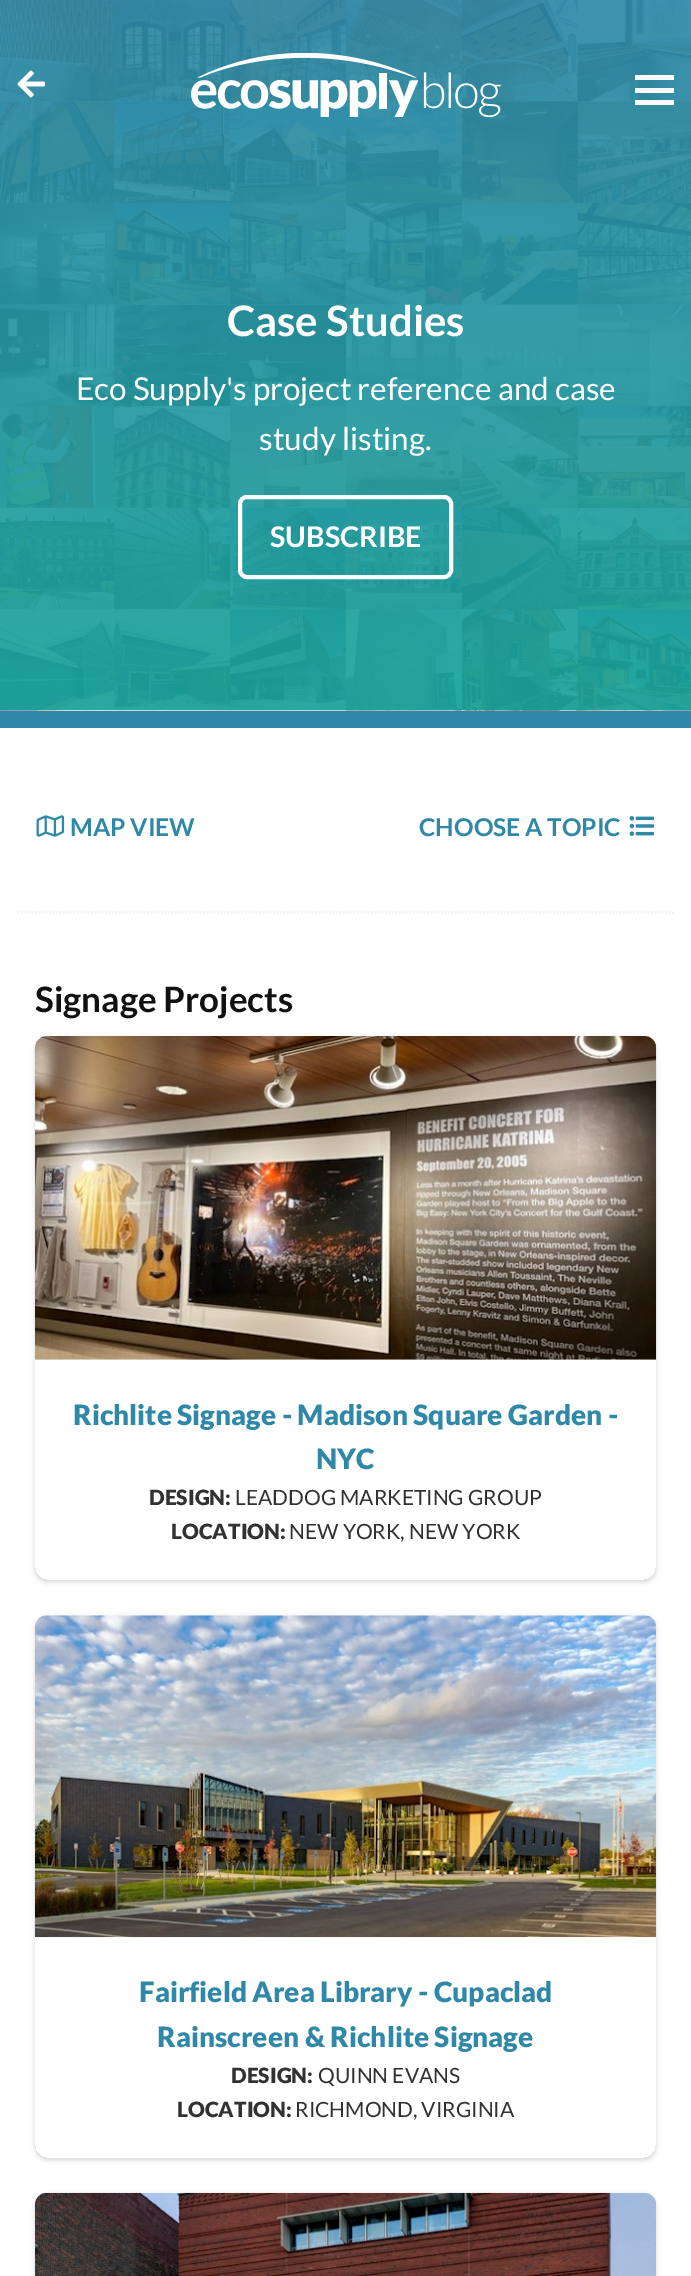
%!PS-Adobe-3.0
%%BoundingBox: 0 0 691 2276
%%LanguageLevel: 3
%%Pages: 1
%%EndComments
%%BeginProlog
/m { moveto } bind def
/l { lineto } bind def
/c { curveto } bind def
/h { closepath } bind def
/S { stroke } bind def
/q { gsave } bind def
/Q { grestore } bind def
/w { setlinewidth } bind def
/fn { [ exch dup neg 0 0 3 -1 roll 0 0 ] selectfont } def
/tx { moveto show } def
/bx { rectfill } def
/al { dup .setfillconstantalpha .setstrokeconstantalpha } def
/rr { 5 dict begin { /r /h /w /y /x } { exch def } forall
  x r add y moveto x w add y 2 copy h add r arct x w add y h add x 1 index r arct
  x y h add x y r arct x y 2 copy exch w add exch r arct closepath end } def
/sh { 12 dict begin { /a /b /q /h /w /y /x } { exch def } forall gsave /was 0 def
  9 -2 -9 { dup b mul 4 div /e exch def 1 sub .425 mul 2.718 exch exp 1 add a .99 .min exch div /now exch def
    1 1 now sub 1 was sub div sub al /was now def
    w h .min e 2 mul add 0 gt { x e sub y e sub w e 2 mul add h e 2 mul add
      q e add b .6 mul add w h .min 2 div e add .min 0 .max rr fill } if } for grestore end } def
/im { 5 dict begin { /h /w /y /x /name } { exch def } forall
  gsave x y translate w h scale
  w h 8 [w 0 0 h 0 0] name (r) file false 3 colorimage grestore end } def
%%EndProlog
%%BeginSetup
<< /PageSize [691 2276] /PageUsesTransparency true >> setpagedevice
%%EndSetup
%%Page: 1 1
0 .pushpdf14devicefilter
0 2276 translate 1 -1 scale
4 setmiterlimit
1 setgray
0 0 691 2276 bx
(image0.raw) 0 0 691 711 im
(image1.raw) 17 70 29 28 im
(image2.raw) 191 53 310 64 im
0.996 setgray
635 100 39 5 bx
635 88 39 5 bx
635 75 39 5 bx
/Lato-Bold 42 fn
(Case Studies) 227 336 tx
/Lato-Regular 31.5 fn
(Eco Supply's project reference and case) 76 400 tx
(study listing.) 259 450 tx
4 w
240 497 211 80 7 rr S
/Lato-Bold 28.5 fn
(SUBSCRIBE) 270 547 tx
0.184 0.533 0.655 setrgbcolor
0 711 691 17 bx
0.933 setgray
1.8 w
[1.75 1.75] 0 setdash
17.5 912.5 m 674 912.5 l S
(image3.raw) 36 815 29 22 im
/Lato-Bold 24.5 fn
0.184 0.533 0.655 setrgbcolor
(MAP VIEW) 70 836 tx
(CHOOSE A TOPIC) 419 836 tx
(image4.raw) 629 816 26 20 im
/Lato-Bold 35 fn
0.067 setgray
(Signage Projects) 35 1012 tx
q
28 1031 m 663 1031 l 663 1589 l 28 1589 l h 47 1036 m 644 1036 l 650.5 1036 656 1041.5 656 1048 c 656 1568 l 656 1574.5 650.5 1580 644 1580 c 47 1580 l 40.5 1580 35 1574.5 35 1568 c 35 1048 l 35 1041.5 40.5 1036 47 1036 c h eoclip newpath
0 setgray
35 1038 621 544 12 2 0.06 sh
Q
q
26 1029 m 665 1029 l 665 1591 l 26 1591 l h 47 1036 m 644 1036 l 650.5 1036 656 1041.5 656 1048 c 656 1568 l 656 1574.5 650.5 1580 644 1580 c 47 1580 l 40.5 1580 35 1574.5 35 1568 c 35 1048 l 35 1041.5 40.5 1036 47 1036 c h eoclip newpath
0 setgray
35 1038 621 544 12 2.5 0.1 sh
Q
(image5.raw) 35 1036 622 324 im
/Lato-Black 28 fn
0.184 0.533 0.655 setrgbcolor
(Richlite Signage - Madison Square Garden -) 73 1425 tx
(NYC) 316 1469 tx
/Lato-Black 21 fn
0.192 setgray
(DESIGN:) 149 1505 tx
/Lato-Regular 21 fn
(LEADDOG MARKETING GROUP) 235 1505 tx
/Lato-Black 21 fn
(LOCATION:) 171 1539 tx
/Lato-Regular 21 fn
(NEW YORK, NEW YORK) 289 1539 tx
q
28 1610 m 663 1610 l 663 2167 l 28 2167 l h 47 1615 m 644 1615 l 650.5 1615 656 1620.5 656 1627 c 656 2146 l 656 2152.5 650.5 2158 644 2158 c 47 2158 l 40.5 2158 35 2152.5 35 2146 c 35 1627 l 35 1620.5 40.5 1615 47 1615 c h eoclip newpath
0 setgray
35 1617 621 543 12 2 0.06 sh
Q
q
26 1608 m 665 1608 l 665 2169 l 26 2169 l h 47 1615 m 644 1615 l 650.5 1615 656 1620.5 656 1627 c 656 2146 l 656 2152.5 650.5 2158 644 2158 c 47 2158 l 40.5 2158 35 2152.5 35 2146 c 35 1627 l 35 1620.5 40.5 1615 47 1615 c h eoclip newpath
0 setgray
35 1617 621 543 12 2.5 0.1 sh
Q
(image6.raw) 35 1615 622 323 im
/Lato-Black 28 fn
0.184 0.533 0.655 setrgbcolor
(Fairfield Area Library - Cupaclad) 139 2002 tx
(Rainscreen & Richlite Signage) 157 2047 tx
/Lato-Black 21 fn
0.192 setgray
(DESIGN:) 231 2083 tx
/Lato-Regular 21 fn
(QUINN EVANS) 318 2083 tx
/Lato-Black 21 fn
(LOCATION:) 177 2117 tx
/Lato-Regular 21 fn
(RICHMOND, VIRGINIA) 295 2117 tx
0 setgray
35 2195 621 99 12 2 0.06 sh
35 2195 621 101 12 2.5 0.1 sh
(image7.raw) 35 2192 622 84 im
.poppdf14devicefilter showpage
%%EOF
